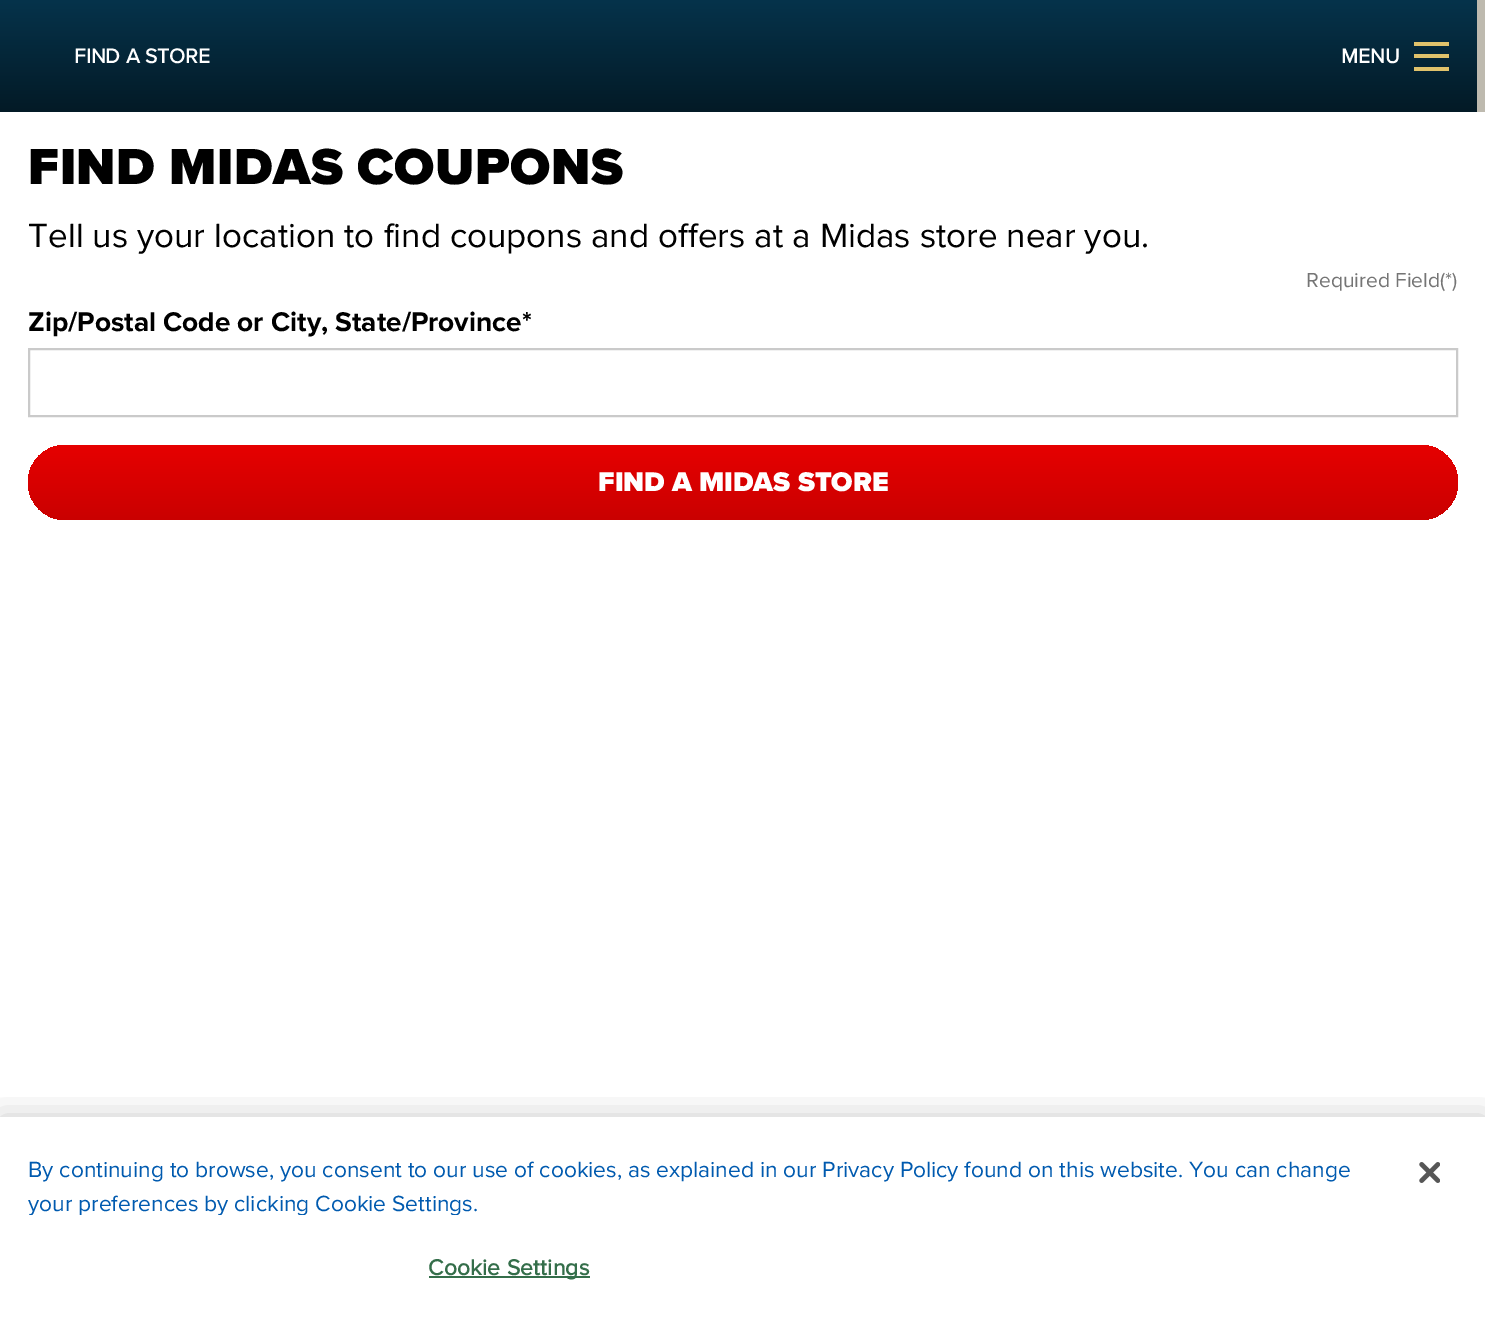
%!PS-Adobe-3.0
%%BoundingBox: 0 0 1485 1330
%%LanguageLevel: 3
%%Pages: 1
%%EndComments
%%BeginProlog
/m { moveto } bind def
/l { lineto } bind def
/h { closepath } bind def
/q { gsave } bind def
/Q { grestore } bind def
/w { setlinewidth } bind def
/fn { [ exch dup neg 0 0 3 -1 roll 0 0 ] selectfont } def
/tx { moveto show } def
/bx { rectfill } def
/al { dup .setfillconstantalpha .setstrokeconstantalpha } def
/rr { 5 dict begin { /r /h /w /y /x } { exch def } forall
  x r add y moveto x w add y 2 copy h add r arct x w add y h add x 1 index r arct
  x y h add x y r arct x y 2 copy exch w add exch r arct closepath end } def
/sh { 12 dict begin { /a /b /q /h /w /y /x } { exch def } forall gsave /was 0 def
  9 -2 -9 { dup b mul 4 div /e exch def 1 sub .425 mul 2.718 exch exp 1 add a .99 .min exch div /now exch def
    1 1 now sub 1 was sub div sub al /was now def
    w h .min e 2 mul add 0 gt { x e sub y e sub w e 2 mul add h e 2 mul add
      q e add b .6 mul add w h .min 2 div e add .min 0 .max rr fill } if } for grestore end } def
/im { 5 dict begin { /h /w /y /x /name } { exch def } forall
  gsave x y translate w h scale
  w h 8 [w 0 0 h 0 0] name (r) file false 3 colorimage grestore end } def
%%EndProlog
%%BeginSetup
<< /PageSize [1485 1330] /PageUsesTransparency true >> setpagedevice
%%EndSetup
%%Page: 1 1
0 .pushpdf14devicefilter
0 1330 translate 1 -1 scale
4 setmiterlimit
0.745 0.729 0.686 setrgbcolor
0 0 1485 1330 bx
q 0 0 m 1477 0 l 1477 112 l 0 112 l h clip newpath
<< /ShadingType 2 /ColorSpace /DeviceRGB /Coords [739 0 739 112] /Extend [true true] /Function << /FunctionType 2 /Domain [0 1] /C0 [0.024 0.2 0.294] /C1 [0.012 0.102 0.149] /N 1 >> >> shfill Q
/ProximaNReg-Bold 21 fn
1 setgray
(FIND A STORE) 74 63 tx
(MENU) 1341 63 tx
0.878 0.761 0.42 setrgbcolor
1414 67 35 4 bx
1414 54 35 4 bx
1414 42 35 4 bx
1 setgray
0 112 1485 1218 bx
/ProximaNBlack-Black 52.5 fn
0 setgray
28 184 m 0.5 0 (FIND MIDAS COUPONS) ashow
/ProximaNReg-Regular 35 fn
(Tell us your location to find coupons and offers at a Midas store near you.) 28 247 tx
/ProximaNReg-Regular 21 fn
0.459 setgray
(Required Field\(*\)) 1306 287 tx
/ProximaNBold-Bold 28 fn
0 setgray
(Zip/Postal Code or City, State/Province*) 28 331 tx
0.792 setgray
2 w
29 349 1428 67 rectstroke
q 28 445 1430 75 37.5 rr clip newpath
<< /ShadingType 2 /ColorSpace /DeviceRGB /Coords [743 444 743 520] /Extend [true true] /Function << /FunctionType 2 /Domain [0 1] /C0 [0.902 0 0] /C1 [0.792 0 0] /N 1 >> >> shfill Q
/ProximaNBlack-Black 28 fn
1 setgray
(FIND A MIDAS STORE) 598 491 tx
q
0 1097 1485 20 rectclip
0 setgray
0 1117 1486 213 0 16 0.2 sh
Q
/ProximaNReg-Regular 22.75 fn
0 0.353 0.686 setrgbcolor
(By continuing to browse, you consent to our use of cookies, as explained in our Privacy Policy found on this website. You can change) 28 1177 tx
q
28 1152 1356 63 rectclip
(your preferences by clicking Cookie Settings.) 28 1211 tx
Q
0.204 0.431 0.29 setrgbcolor
429 1276 161 2 bx
/ProximaNReg-Bold 22.75 fn
428 1275 m 0.25 0 (Cookie Settings) ashow
(image0.raw) 1419 1162 21 21 im
.poppdf14devicefilter showpage
%%EOF
